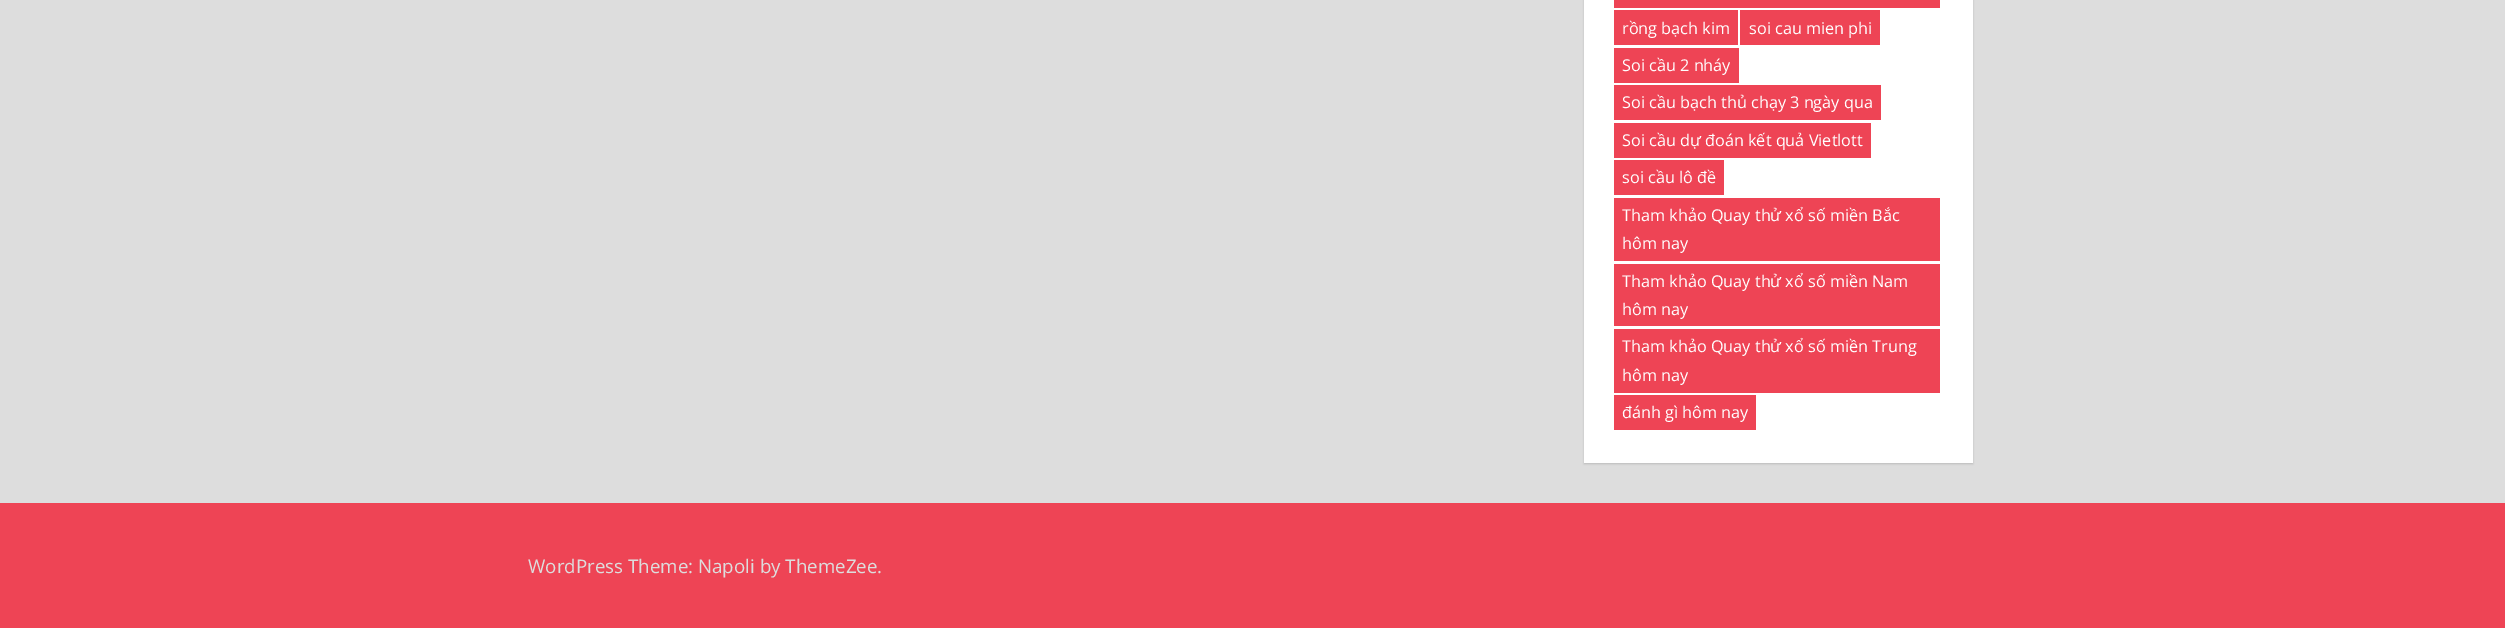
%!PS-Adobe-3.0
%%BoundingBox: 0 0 2505 628
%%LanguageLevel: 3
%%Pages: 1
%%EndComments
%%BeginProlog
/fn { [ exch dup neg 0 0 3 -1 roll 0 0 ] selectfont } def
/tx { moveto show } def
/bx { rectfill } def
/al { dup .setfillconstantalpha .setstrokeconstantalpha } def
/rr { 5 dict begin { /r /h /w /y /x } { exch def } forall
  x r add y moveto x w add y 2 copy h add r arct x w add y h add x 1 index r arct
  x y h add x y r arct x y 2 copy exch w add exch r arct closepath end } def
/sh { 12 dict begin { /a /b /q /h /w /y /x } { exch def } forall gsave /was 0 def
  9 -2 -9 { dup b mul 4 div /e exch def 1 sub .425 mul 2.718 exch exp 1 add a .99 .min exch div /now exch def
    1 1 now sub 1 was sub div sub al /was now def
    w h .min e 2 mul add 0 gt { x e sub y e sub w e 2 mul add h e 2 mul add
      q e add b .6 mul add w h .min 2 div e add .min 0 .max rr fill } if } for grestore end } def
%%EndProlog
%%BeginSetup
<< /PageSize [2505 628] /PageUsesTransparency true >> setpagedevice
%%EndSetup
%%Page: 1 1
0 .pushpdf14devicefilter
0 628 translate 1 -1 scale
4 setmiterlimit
0.867 setgray
0 0 2505 628 bx
0.733 setgray
1584 -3 389 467 0 1 1 sh
1 setgray
1584 0 389 463 bx
0.933 0.267 0.333 setrgbcolor
1614 0 326 8 bx
1614 10 124 35 bx
/OpenSans-Regular 16.25 fn
1 setgray
(rồng bạch kim) 1622 34 tx
0.933 0.267 0.333 setrgbcolor
1740 10 140 35 bx
1 setgray
(soi cau mien phi) 1749 34 tx
0.933 0.267 0.333 setrgbcolor
1614 48 125 35 bx
1 setgray
(Soi cầu 2 nháy) 1622 71 tx
0.933 0.267 0.333 setrgbcolor
1614 85 267 35 bx
1 setgray
(Soi cầu bạch thủ chạy 3 ngày qua) 1622 108 tx
0.933 0.267 0.333 setrgbcolor
1614 123 257 35 bx
1 setgray
(Soi cầu dự đoán kết quả Vietlott) 1622 146 tx
0.933 0.267 0.333 setrgbcolor
1614 160 110 35 bx
1 setgray
(soi cầu lô đề) 1622 183 tx
0.933 0.267 0.333 setrgbcolor
1614 198 326 63 bx
1 setgray
(Tham khảo Quay thử xổ số miền Bắc) 1622 221 tx
(hôm nay) 1622 249 tx
0.933 0.267 0.333 setrgbcolor
1614 264 326 62 bx
1 setgray
(Tham khảo Quay thử xổ số miền Nam) 1622 287 tx
(hôm nay) 1622 315 tx
0.933 0.267 0.333 setrgbcolor
1614 329 326 64 bx
1 setgray
(Tham khảo Quay thử xổ số miền Trung) 1622 352 tx
(hôm nay) 1622 381 tx
0.933 0.267 0.333 setrgbcolor
1614 395 142 35 bx
1 setgray
(đánh gì hôm nay) 1622 418 tx
0.933 0.267 0.333 setrgbcolor
0 503 2505 125 bx
/OpenSans-Regular 18.75 fn
0.867 setgray
(WordPress Theme: Napoli by ThemeZee.) 528 573 tx
.poppdf14devicefilter showpage
%%EOF
